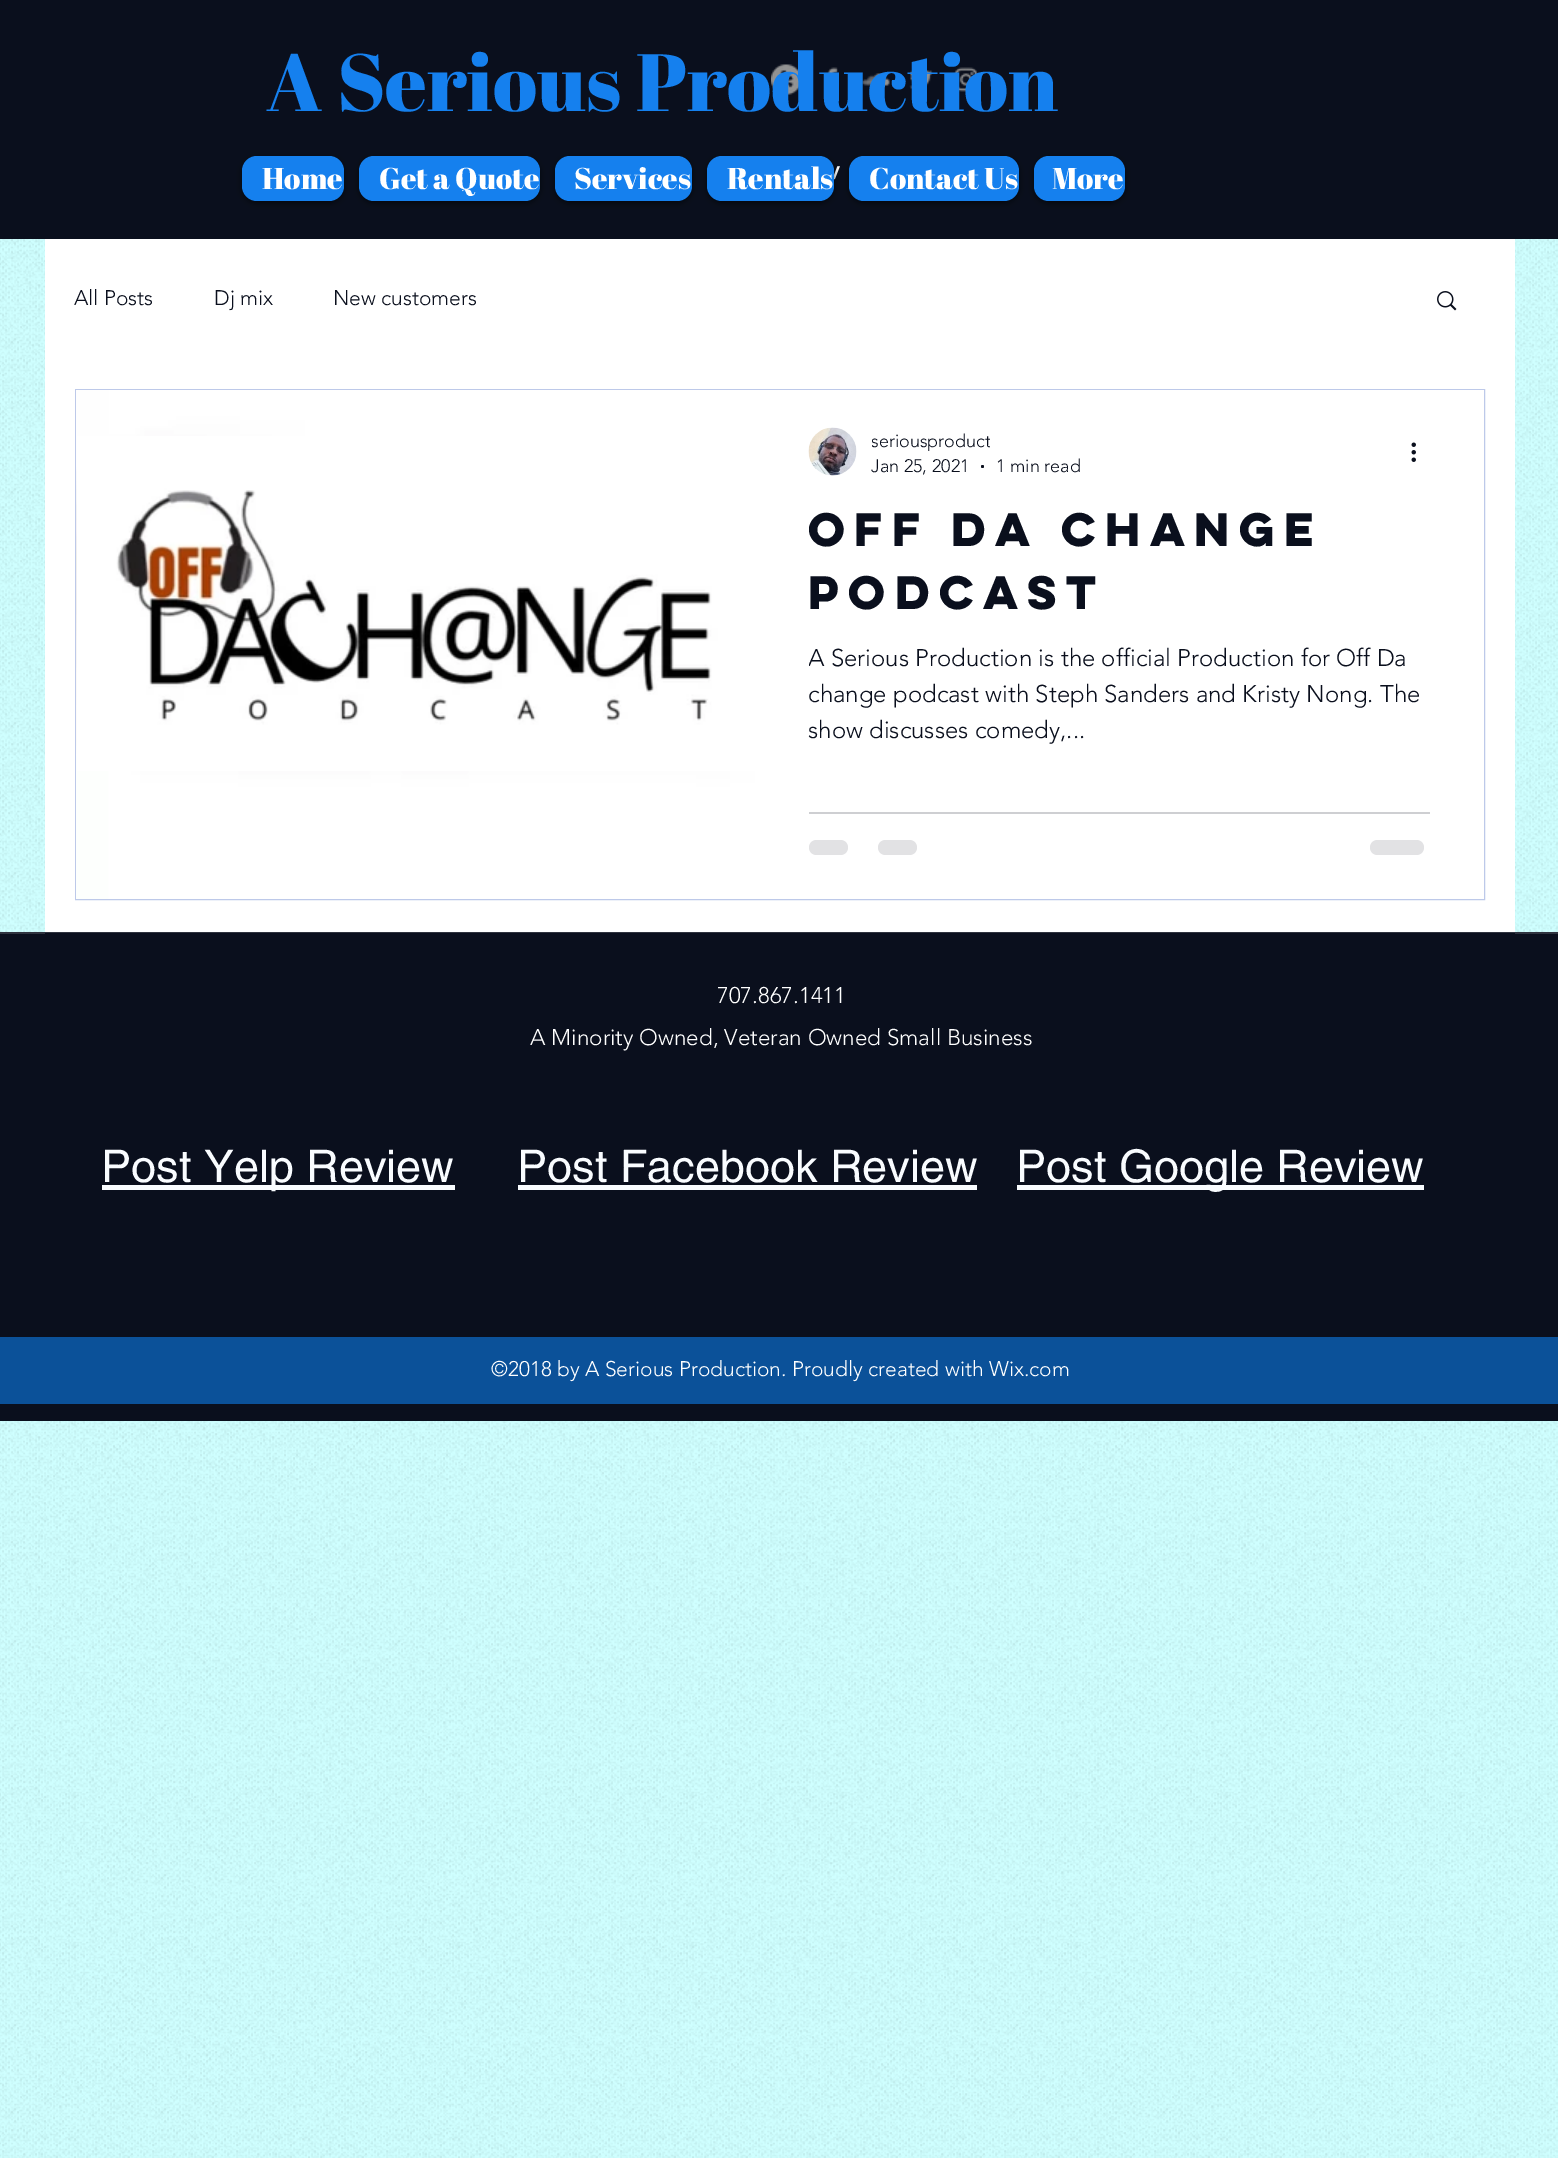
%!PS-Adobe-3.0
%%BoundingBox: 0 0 1558 2158
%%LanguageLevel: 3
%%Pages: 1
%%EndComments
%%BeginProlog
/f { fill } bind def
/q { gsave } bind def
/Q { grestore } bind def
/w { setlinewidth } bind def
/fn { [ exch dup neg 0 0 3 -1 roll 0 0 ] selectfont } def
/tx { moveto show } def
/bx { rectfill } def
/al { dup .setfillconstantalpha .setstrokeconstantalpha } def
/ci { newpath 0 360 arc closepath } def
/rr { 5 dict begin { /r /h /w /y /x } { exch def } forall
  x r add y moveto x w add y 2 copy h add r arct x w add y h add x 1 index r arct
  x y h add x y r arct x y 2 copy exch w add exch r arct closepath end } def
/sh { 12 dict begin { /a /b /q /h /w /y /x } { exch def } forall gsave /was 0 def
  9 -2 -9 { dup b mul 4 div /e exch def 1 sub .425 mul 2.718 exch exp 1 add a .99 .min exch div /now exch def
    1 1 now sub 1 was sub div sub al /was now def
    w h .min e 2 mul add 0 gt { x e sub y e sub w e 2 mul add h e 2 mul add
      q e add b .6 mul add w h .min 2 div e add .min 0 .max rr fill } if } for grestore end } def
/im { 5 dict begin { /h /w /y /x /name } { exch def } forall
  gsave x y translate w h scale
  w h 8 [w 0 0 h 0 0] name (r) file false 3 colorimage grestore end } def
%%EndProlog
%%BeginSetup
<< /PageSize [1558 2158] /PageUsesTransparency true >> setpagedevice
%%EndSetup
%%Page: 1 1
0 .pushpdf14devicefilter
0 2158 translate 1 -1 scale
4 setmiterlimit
0.812 1 1 setrgbcolor
0 0 1558 2158 bx
0.039 0.059 0.114 setrgbcolor
0 0 1558 239 bx
(image0.raw) 771 64 30 31 im
(image1.raw) 824 67 14 25 im
(image2.raw) 861 73 29 13 im
(image3.raw) 909 69 24 21 im
(image4.raw) 953 67 26 25 im
/AbrilFatface-Regular 81 fn
0.082 0.502 0.933 setrgbcolor
(A Serious Production) 266 111 tx
(image5.raw) 834 166 6 14 im
0 setgray
242 158 102 45 15 3 0.6 sh
0.082 0.502 0.933 setrgbcolor
242 156 102 45 15 rr f
/AbrilFatface-Regular 30 fn
1 setgray
(Home) 262 189 tx
0 setgray
359 158 181 45 15 3 0.6 sh
0.082 0.502 0.933 setrgbcolor
359 156 181 45 15 rr f
1 setgray
(Get a Quote) 379 189 tx
0 setgray
555 158 137 45 15 3 0.6 sh
0.082 0.502 0.933 setrgbcolor
555 156 137 45 15 rr f
1 setgray
(Services) 574 189 tx
0 setgray
707 158 127 45 15 3 0.6 sh
0.082 0.502 0.933 setrgbcolor
707 156 127 45 15 rr f
1 setgray
(Rentals) 727 189 tx
0 setgray
849 158 170 45 15 3 0.6 sh
0.082 0.502 0.933 setrgbcolor
849 156 170 45 15 rr f
1 setgray
(Contact Us) 869 189 tx
0 setgray
1034 158 91 45 15 3 0.6 sh
0.082 0.502 0.933 setrgbcolor
1034 156 91 45 15 rr f
1 setgray
(More) 1052 189 tx
(image11.raw) 0 239 1558 1919 im
45 239 1470 693 bx
/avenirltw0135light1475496-Light 21 fn
0.039 0.059 0.114 setrgbcolor
(All Posts) 74 305 tx
(Dj mix) 214 305 tx
(New customers) 333 305 tx
(image6.raw) 1437 291 20 20 im
0.741 0.788 0.914 setrgbcolor
2 w
76 390 1408 509 rectstroke
(image7.raw) 76 390 679 509 im
(image8.raw) 77 436 678 335 im
1 setgray
755 390 729 509 bx
(image9.raw) 808 427 49 49 im
q
872 431 118 21 rectclip
/avenirltw0135light1475496-Light 18 fn
0.039 0.059 0.114 setrgbcolor
(seriousproduct) 871 447 tx
Q
/avenirltw0135light1475496-Light 18 fn
0.039 0.059 0.114 setrgbcolor
(Jan 25, 2021) 871 472 tx
982.5 466.5 1.5 ci f
(1 min read) 996 472 tx
(image10.raw) 1411 442 5 20 im
q
809 497 621 126 rectclip
/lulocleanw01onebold-Bold 42 fn
(Off Da change) 808 546 tx
Q
/lulocleanw01onebold-Bold 42 fn
(podcast) 808 609 tx
q
809 641 621 108 rectclip
/avenirltw0135light1475496-Light 24 fn
(A Serious Production is the official Production for Off Da) 808 666 tx
Q
/avenirltw0135light1475496-Light 24 fn
(change podcast with Steph Sanders and Kristy Nong. The) 808 702 tx
(show discusses comedy,...) 808 738 tx
0.808 0.812 0.824 setrgbcolor
809 812 621 2 bx
0.886 0.886 0.894 setrgbcolor
809 840 39 15 7.5 rr f
878 840 39 15 7.5 rr f
1370 840 54 15 7.5 rr f
0.039 0.059 0.114 setrgbcolor
0 934 1558 487 bx
0.184 0.2 0.247 setrgbcolor
0 932 1558 2 bx
0.039 0.059 0.114 setrgbcolor
45 933 1470 1 bx
/avenirltw0135light1475496-Light 22.5 fn
1 setgray
(707.867.1411) 717 1003 tx
(A Minority Owned, Veteran Owned Small Business) 530 1045 tx
0.976 0.988 1 setrgbcolor
102 1185 353 5 bx
/helvetica-Regular 45 fn
(Post Yelp Review) 101 1182 tx
(Post Facebook Review) 517 1182 tx
518 1185 459 5 bx
1017 1185 407 5 bx
(Post Google Review) 1016 1182 tx
0.043 0.318 0.6 setrgbcolor
0 1337 1558 67 bx
/avenirltw0135light1475496-Light 21 fn
1 setgray
(©2018 by A Serious Production. Proudly created with Wix.com) 491 1376 tx
.poppdf14devicefilter showpage
%%EOF
